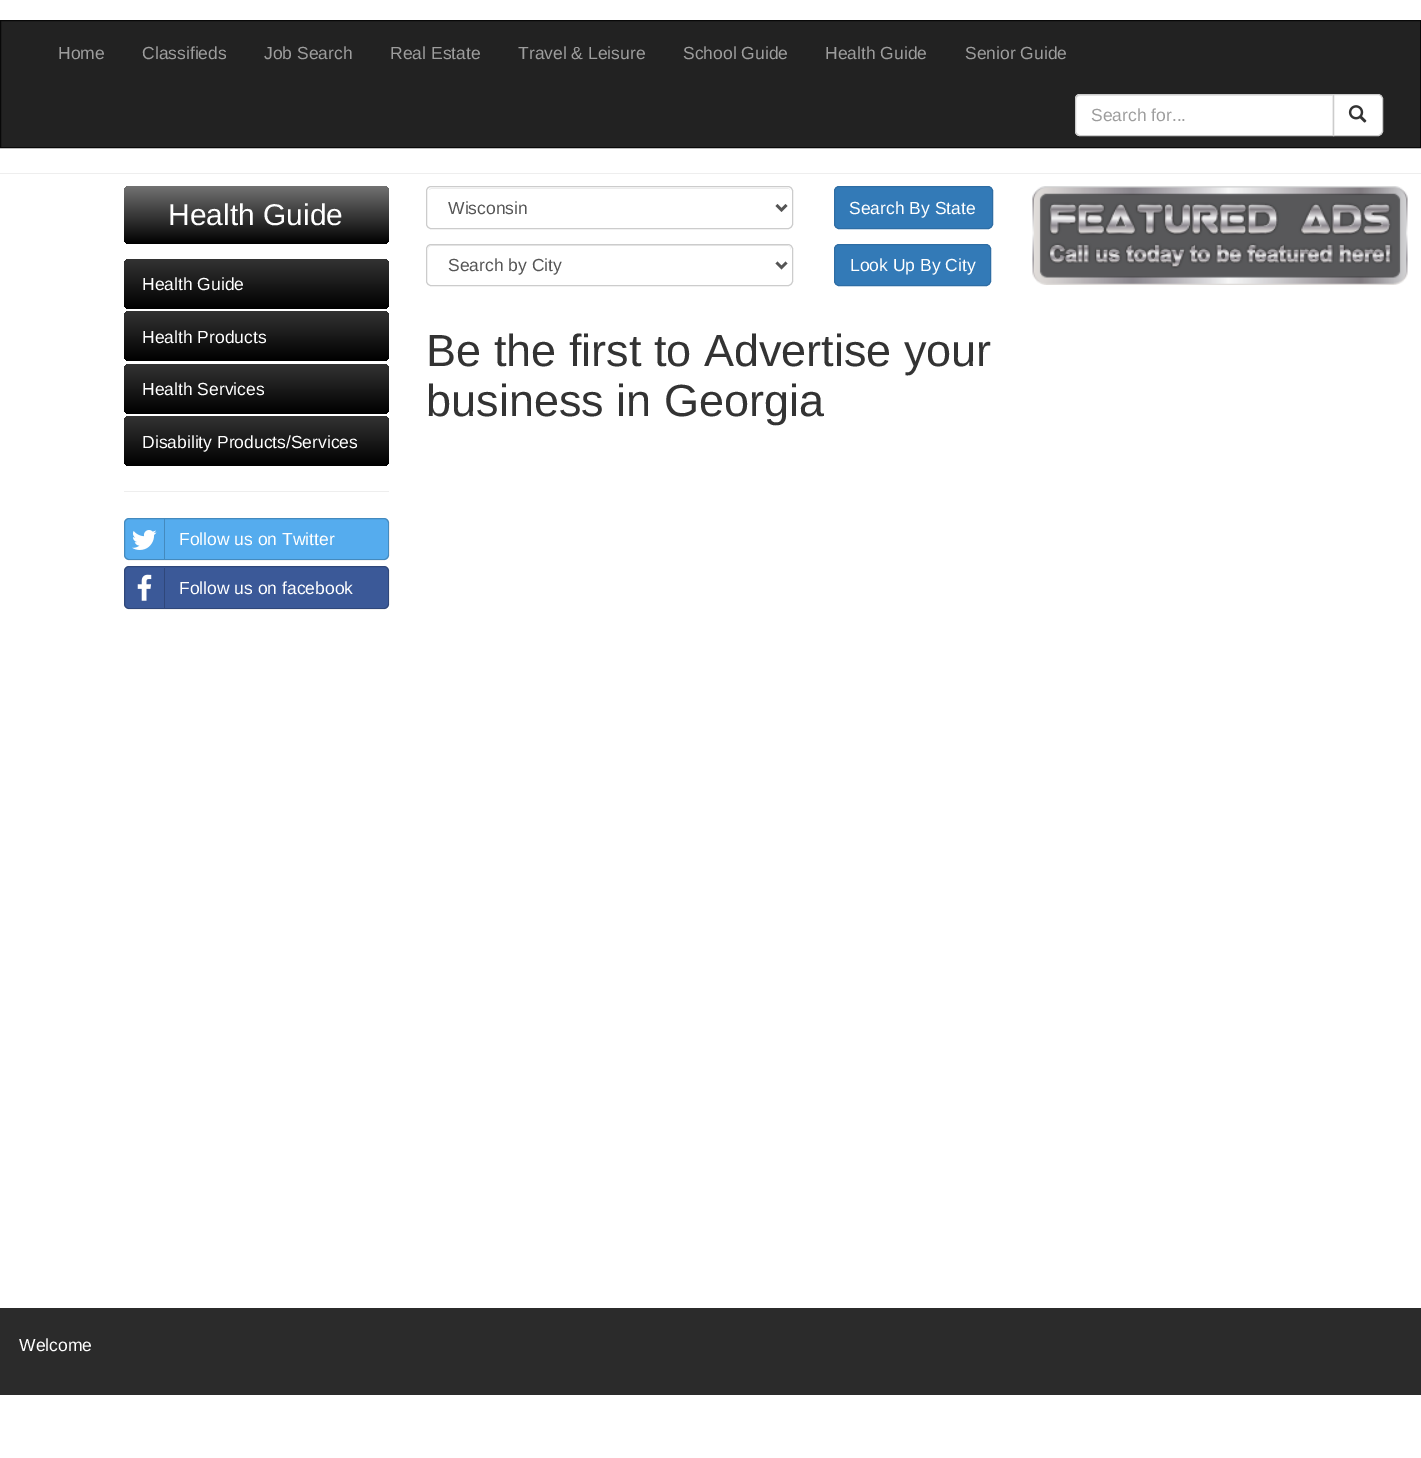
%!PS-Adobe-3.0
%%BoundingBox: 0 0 1421 1458
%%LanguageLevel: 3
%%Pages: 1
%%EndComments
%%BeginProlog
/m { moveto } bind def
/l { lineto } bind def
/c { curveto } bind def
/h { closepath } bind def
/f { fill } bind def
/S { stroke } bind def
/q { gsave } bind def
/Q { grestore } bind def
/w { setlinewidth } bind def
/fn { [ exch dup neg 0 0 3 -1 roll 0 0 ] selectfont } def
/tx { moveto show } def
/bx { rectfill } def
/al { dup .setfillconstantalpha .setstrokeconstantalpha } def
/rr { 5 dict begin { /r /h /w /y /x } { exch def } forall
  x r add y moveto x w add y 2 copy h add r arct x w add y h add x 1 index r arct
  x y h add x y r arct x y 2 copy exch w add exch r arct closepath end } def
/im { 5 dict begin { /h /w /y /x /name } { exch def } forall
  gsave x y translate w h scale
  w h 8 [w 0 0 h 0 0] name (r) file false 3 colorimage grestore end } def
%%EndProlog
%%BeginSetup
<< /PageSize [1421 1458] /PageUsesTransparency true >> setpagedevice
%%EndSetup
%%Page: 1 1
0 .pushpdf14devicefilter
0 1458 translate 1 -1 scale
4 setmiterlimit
1 setgray
0 0 1421 1458 bx
0.933 setgray
0 173 1421 1 bx
0.133 setgray
0.5 20.5 m 1420.5 20.5 l 1420.5 147.5 l 0.5 147.5 l h q f Q
0.031 setgray
S
/LiberationSans-Regular 17.5 fn
0.616 setgray
(Home) 58 59 tx
(Classifieds) 142 59 tx
(Job Search) 264 59 tx
(Real Estate) 390 59 tx
(Travel & Leisure) 518 59 tx
(School Guide) 683 59 tx
(Health Guide) 825 59 tx
(Senior Guide) 965 59 tx
1 setgray
1080 94 m 1334 94 l 1334 136 l 1080 136 l 1077 136 1075 134 1075 131 c 1075 99 l 1075 96 1077 94 1080 94 c h f
0.925 setgray
1080 96 m 1332 96 l 1332 135 l 1333 135 l 1333 95 l 1080 95 l 1078 95 1076 97 1076 99 c 1076 100 l 1076 98 1078 96 1080 96 c h f
0.8 setgray
1080 94.5 m 1333.5 94.5 l 1333.5 135.5 l 1080 135.5 l 1077.5 135.5 1075.5 133.5 1075.5 131 c 1075.5 99 l 1075.5 96.5 1077.5 94.5 1080 94.5 c h S
0.616 setgray
(Search for...) 1091 121 tx
1 setgray
1333.5 94.5 m 1378 94.5 l 1380.5 94.5 1382.5 96.5 1382.5 99 c 1382.5 131 l 1382.5 133.5 1380.5 135.5 1378 135.5 c 1333.5 135.5 l h q f Q
0.8 setgray
S
(image0.raw) 1348 105 19 18 im
q 124 186 265 58 6 rr clip newpath
<< /ShadingType 2 /ColorSpace /DeviceRGB /Coords [256 186 256 244] /Extend [true true] /Function << /FunctionType 2 /Domain [0 1] /C0 [0.447 0.447 0.447] /C1 [0 0 0] /N 1 >> >> shfill Q
/LiberationSans-Regular 30 fn
1 setgray
(Health Guide) 168 225 tx
q 124 259 265 50 6 rr clip newpath
<< /ShadingType 2 /ColorSpace /DeviceRGB /Coords [256 259 256 309] /Extend [true true] /Function << /FunctionType 2 /Domain [0 1] /C0 [0.2 0.2 0.2] /C1 [0 0 0] /N 1 >> >> shfill Q
/LiberationSans-Regular 17.5 fn
(Health Guide) 142 290 tx
q 124 311 265 50 6 rr clip newpath
<< /ShadingType 2 /ColorSpace /DeviceRGB /Coords [256 311 256 361] /Extend [true true] /Function << /FunctionType 2 /Domain [0 1] /C0 [0.2 0.2 0.2] /C1 [0 0 0] /N 1 >> >> shfill Q
(Health Products) 142 343 tx
q 124 364 265 50 6 rr clip newpath
<< /ShadingType 2 /ColorSpace /DeviceRGB /Coords [256 364 256 414] /Extend [true true] /Function << /FunctionType 2 /Domain [0 1] /C0 [0.2 0.2 0.2] /C1 [0 0 0] /N 1 >> >> shfill Q
(Health Services) 142 395 tx
q 124 416 265 50 6 rr clip newpath
<< /ShadingType 2 /ColorSpace /DeviceRGB /Coords [256 416 256 466] /Extend [true true] /Function << /FunctionType 2 /Domain [0 1] /C0 [0.2 0.2 0.2] /C1 [0 0 0] /N 1 >> >> shfill Q
(Disability Products/Services) 142 448 tx
0.933 setgray
124 491 265 1 bx
0.333 0.675 0.933 setrgbcolor
124 518 265 42 5 rr f
0.2 al
0 setgray
124.5 518.5 264 41 4.5 rr S
1 al
0.267 0.541 0.745 setrgbcolor
164 519 1 40 bx
(image1.raw) 132 530 25 20 im
1 setgray
(Follow us on Twitter) 179 545 tx
0.231 0.349 0.596 setrgbcolor
124 566 265 43 5 rr f
0.2 al
0 setgray
124.5 566.5 264 42 4.5 rr S
1 al
0.184 0.278 0.478 setrgbcolor
164 568 1 40 bx
(image2.raw) 137 574 15 27 im
1 setgray
(Follow us on facebook) 179 594 tx
0.925 setgray
431 189 m 789 189 l 790 190 l 790 189 788 188 787 188 c 432 188 l 431 188 429 189 429 190 c h f
0.8 setgray
426.5 186.5 366 42 4.5 rr S
0.333 setgray
2.5 w
776.5 205 m 781.5 210 l 786.5 205 l S
(Wisconsin) 448 214 tx
0.2 0.478 0.718 setrgbcolor
834.5 186.5 158 42 4.5 rr q f Q
0.18 0.427 0.643 setrgbcolor
1 w
S
1 setgray
(Search By State) 849 214 tx
0.925 setgray
431 246 m 788 246 l 790 246 791 248 791 250 c 790 247 l 788 245 l 432 245 l 429 245 428 247 428 250 c 428 248 429 246 431 246 c h f
0.8 setgray
426.5 244.5 366 41 4.5 rr S
0.333 setgray
2.5 w
776.5 262.5 m 781.5 267.5 l 786.5 262.5 l S
(Search by City) 448 271 tx
0.2 0.478 0.718 setrgbcolor
834.5 244.5 156 41 4.5 rr q f Q
0.18 0.427 0.643 setrgbcolor
1 w
S
1 setgray
(Look Up By City) 850 271 tx
/LiberationSans-Regular 45 fn
0.2 setgray
(Be the first to Advertise your) 426 366 tx
(business in Georgia) 426 416 tx
(image3.raw) 1032 186 376 99 im
0.169 setgray
0 1308 1421 87 bx
/LiberationSans-Regular 17.5 fn
1 setgray
(Welcome) 19 1351 tx
.poppdf14devicefilter showpage
%%EOF
